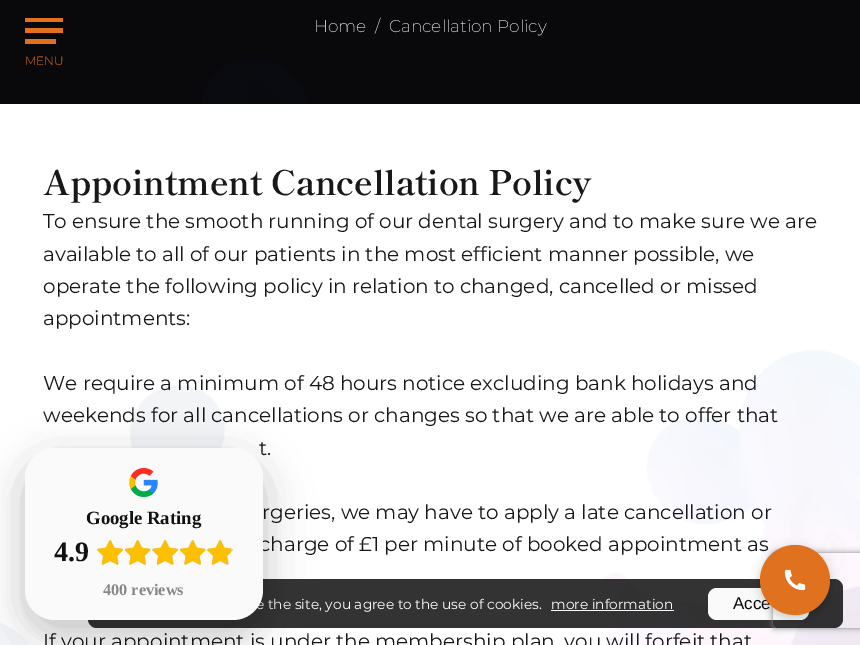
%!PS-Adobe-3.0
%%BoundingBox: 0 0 860 645
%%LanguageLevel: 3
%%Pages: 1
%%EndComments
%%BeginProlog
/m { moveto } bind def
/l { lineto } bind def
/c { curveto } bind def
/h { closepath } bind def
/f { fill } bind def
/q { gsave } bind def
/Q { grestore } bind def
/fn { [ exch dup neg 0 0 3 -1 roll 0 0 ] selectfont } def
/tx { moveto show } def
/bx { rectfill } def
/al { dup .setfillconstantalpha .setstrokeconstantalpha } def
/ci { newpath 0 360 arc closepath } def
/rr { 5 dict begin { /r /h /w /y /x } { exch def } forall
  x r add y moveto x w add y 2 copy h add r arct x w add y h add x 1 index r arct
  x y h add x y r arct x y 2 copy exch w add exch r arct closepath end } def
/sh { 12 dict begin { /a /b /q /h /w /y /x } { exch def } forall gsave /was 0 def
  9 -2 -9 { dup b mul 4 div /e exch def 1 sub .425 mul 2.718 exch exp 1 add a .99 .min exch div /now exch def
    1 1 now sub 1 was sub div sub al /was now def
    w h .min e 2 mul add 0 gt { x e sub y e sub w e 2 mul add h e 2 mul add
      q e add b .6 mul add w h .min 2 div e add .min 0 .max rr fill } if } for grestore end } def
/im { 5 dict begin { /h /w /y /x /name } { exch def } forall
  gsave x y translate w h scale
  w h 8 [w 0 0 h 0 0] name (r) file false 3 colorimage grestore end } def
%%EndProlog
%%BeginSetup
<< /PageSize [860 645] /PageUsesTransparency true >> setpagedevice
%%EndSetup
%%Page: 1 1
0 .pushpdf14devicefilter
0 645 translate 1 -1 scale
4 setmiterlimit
1 setgray
0 0 860 645 bx
0.035 0.035 0.043 setrgbcolor
0 0 860 104 bx
(image0.raw) 202 58 106 45 im
/Montserrat-ExtraLight 17 fn
1 setgray
(Home) 314 32 tx
(/) 375 32 tx
(Cancellation Policy) 389 32 tx
0.886 0.443 0.122 setrgbcolor
25 18 38 4 bx
25 28 38 5 bx
25 39 31 5 bx
/Montserrat-Light 12 fn
(MENU) 25 65 tx
(image1.raw) 0 350 860 295 im
/ShipporiMincho-Bold 34 fn
0.094 0.094 0.106 setrgbcolor
43 195 m -0.25 0 (Appointment Cancellation Policy) ashow
/Montserrat-Regular 20 fn
(To ensure the smooth running of our dental surgery and to make sure we are) 43 228 tx
(available to all of our patients in the most efficient manner possible, we) 43 261 tx
(operate the following policy in relation to changed, cancelled or missed) 43 293 tx
(appointments:) 43 325 tx
(We require a minimum of 48 hours notice excluding bank holidays and) 43 390 tx
(weekends for all cancellations or changes so that we are able to offer that) 43 422 tx
(t.) 259 455 tx
(rgeries, we may have to apply a late cancellation or) 262 519 tx
(charge of £1 per minute of booked appointment as) 259 551 tx
(If your appointment is under the membership plan, you will forfeit that) 43 648 tx
0.8 al
0 setgray
88 579 755 49 9 rr f
/Montserrat-Regular 13.75 fn
1 al
1 setgray
(e the site, you agree to the use of cookies.) 256 609 tx
(more information) 551 609 tx
0.98 setgray
551 610 123 1 bx
708 588 101 32 9 rr f
/LiberationSans-Regular 17 fn
0.035 0.035 0.043 setrgbcolor
(Acce) 733 609 tx
0 setgray
25 460 238 173 30 19 0.15 sh
25 466 238 173 30 25 0.1 sh
0.98 setgray
25 448 238 172 30 rr f
(image2.raw) 129 468 29 30 im
/LiberationSerif-Bold 18.75 fn
0.067 setgray
(Google Rating) 86 524 tx
/LiberationSerif-Bold 28 fn
(4.9) 54 561 tx
(image3.raw) 97 540 26 25 im
(image4.raw) 97 540 26 25 im
(image5.raw) 124 540 27 25 im
(image6.raw) 124 540 27 25 im
(image3.raw) 152 540 26 25 im
(image4.raw) 152 540 26 25 im
(image5.raw) 179 540 27 25 im
(image6.raw) 179 540 27 25 im
(image3.raw) 207 540 26 25 im
(image7.raw) 207 540 24 25 im
/LiberationSerif-Bold 16.25 fn
0.525 setgray
(400 reviews) 103 595 tx
0 setgray
760 548 70 70 35 5 0.2 sh
q
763 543 m 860 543 l 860 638 l 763 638 l h 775.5 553 m 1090.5 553 l 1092 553 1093 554 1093 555.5 c 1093 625.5 l 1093 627 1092 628 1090.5 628 c 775.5 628 l 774 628 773 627 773 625.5 c 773 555.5 l 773 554 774 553 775.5 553 c h eoclip newpath
0.502 setgray
773 553 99 75 2.5 3 1 sh
Q
0.878 0.443 0.118 setrgbcolor
795 580 35 ci f
(image8.raw) 784 569 22 22 im
.poppdf14devicefilter showpage
%%EOF
